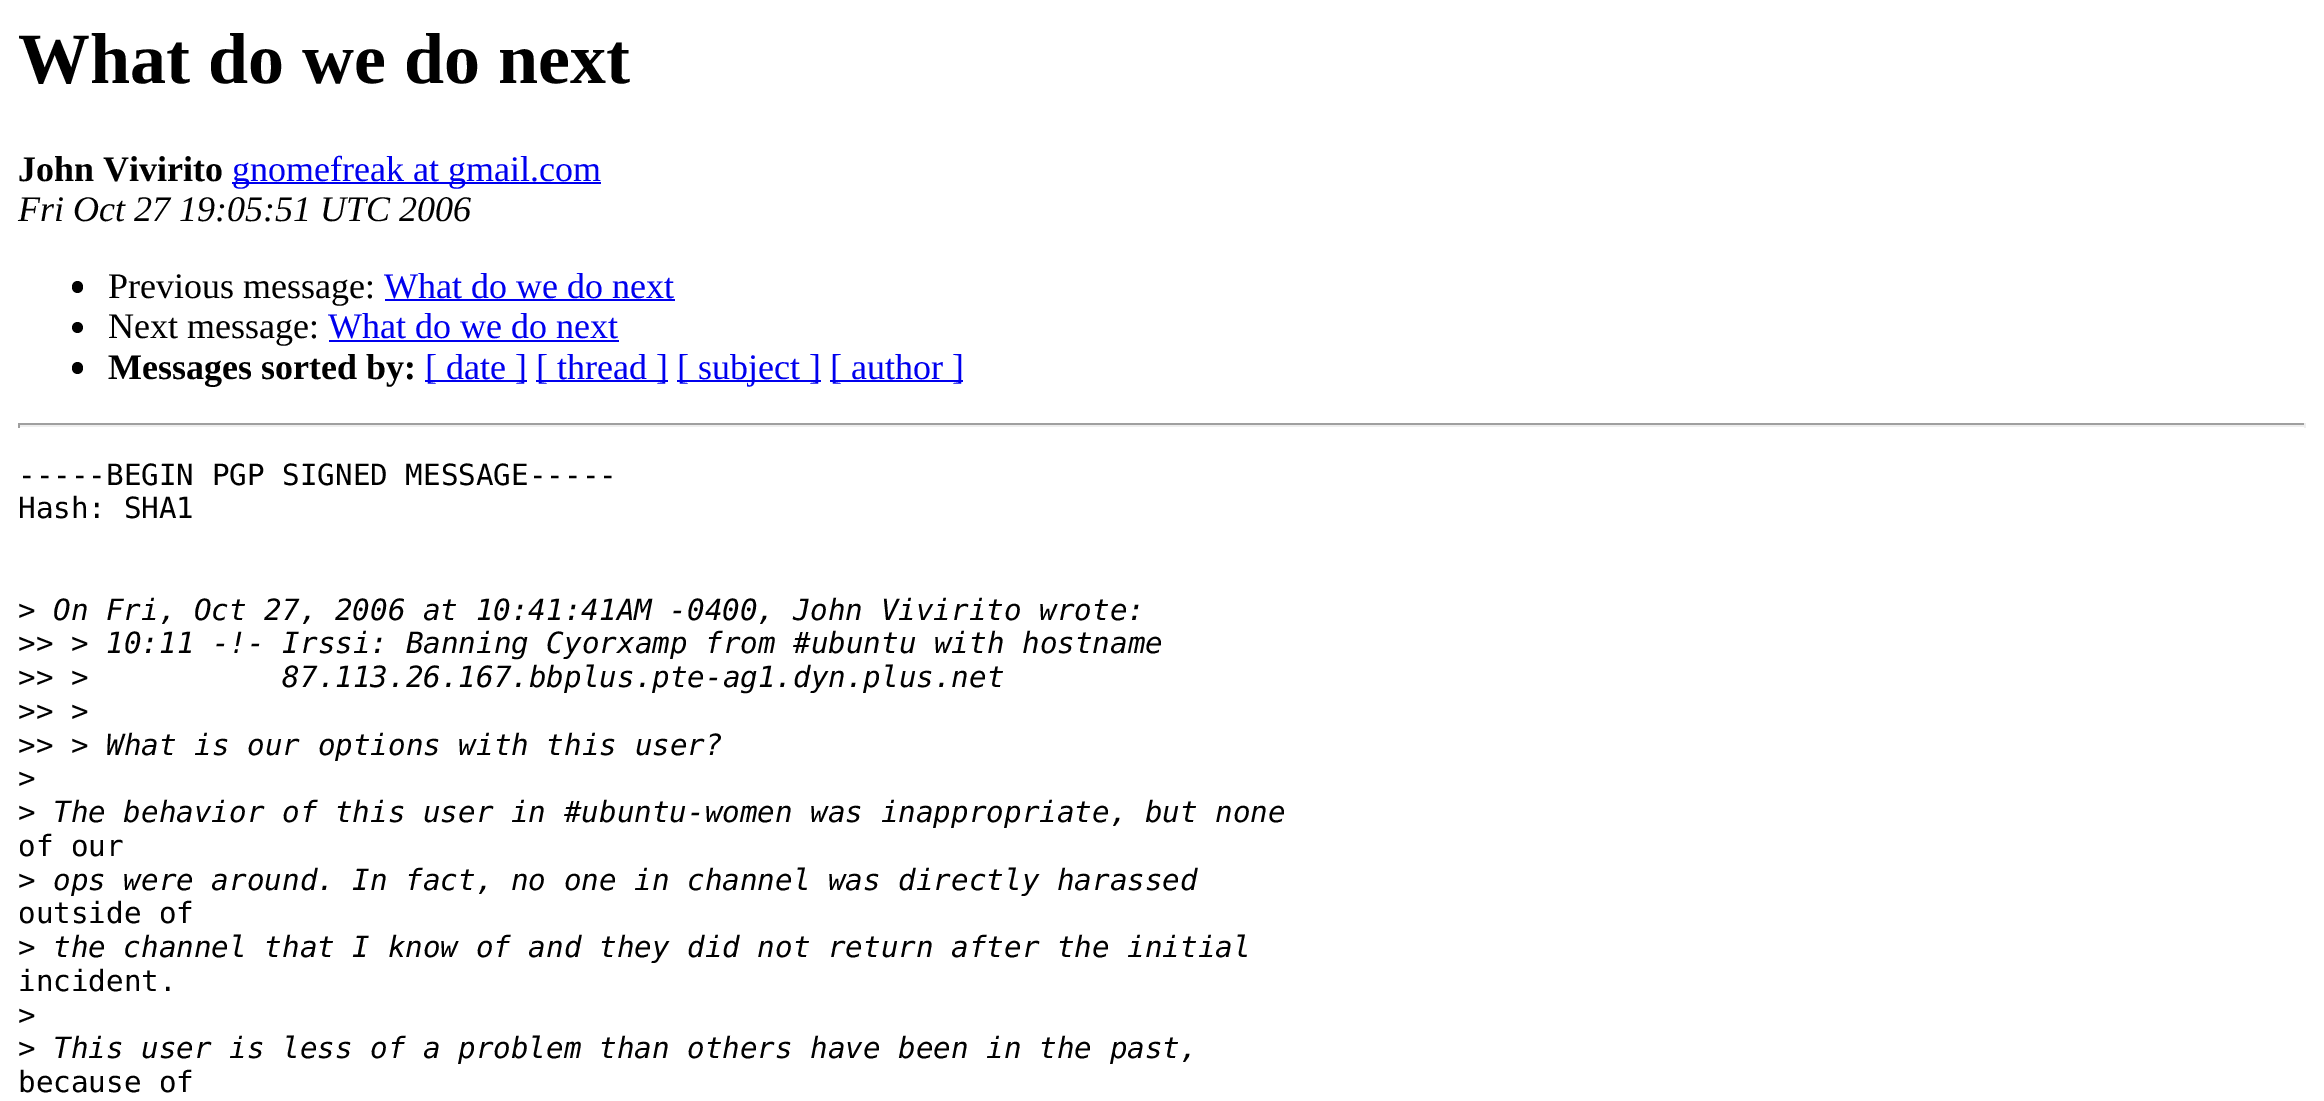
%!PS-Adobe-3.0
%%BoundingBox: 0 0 2324 1101
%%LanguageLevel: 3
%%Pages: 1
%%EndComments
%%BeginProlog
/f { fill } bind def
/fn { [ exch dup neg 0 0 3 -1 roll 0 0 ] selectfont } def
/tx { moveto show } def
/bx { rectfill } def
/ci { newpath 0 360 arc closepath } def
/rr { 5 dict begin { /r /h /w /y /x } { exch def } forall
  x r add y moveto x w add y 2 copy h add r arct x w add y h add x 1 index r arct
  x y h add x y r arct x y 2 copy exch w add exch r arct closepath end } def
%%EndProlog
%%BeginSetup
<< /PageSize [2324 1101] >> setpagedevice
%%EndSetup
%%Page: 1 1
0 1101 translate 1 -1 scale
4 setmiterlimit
1 setgray
0 0 2324 1101 bx
/LiberationSerif-Bold 72 fn
0 setgray
(What do we do next) 18 83 tx
/LiberationSerif-Bold 36 fn
(John Vivirito) 18 181 tx
0 0 0.933 setrgbcolor
232 182 369 2 bx
/LiberationSerif-Regular 36 fn
(gnomefreak at gmail.com) 232 181 tx
/LiberationSerif-Italic 36 fn
0 setgray
(Fri Oct 27 19:05:51 UTC 2006) 18 221 tx
72 281 11 12 5.5 rr f
/LiberationSerif-Regular 36 fn
(Previous message:) 108 298 tx
0 0 0.933 setrgbcolor
(What do we do next) 384 298 tx
385 299 290 2 bx
0 setgray
77.5 327.5 5.5 ci f
(Next message:) 108 338 tx
0 0 0.933 setrgbcolor
(What do we do next) 328 338 tx
329 340 290 2 bx
0 setgray
72 362 11 12 5.5 rr f
/LiberationSerif-Bold 36 fn
(Messages sorted by:) 108 379 tx
0 0 0.933 setrgbcolor
425 380 102 2 bx
/LiberationSerif-Regular 36 fn
([ date ]) 425 379 tx
536 380 132 2 bx
([ thread ]) 536 379 tx
677 380 144 2 bx
([ subject ]) 677 379 tx
830 380 133 2 bx
([ author ]) 830 379 tx
0.624 setgray
18 423 2288 2 bx
0.933 setgray
2304 423 2 5 bx
18 425 2288 2 bx
0.624 setgray
18 423 2 5 bx
/DejaVuSansMono-Regular 29.25 fn
0 setgray
(-----BEGIN PGP SIGNED MESSAGE-----) 18 485 tx
(Hash: SHA1) 18 518 tx
(>) 18 620 tx
/DejaVuSansMono-Italic 29.25 fn
(On Fri, Oct 27, 2006 at 10:41:41AM -0400, John Vivirito wrote:) 53 620 tx
/DejaVuSansMono-Regular 29.25 fn
(>>) 18 653 tx
/DejaVuSansMono-Italic 29.25 fn
(> 10:11 -!- Irssi: Banning Cyorxamp from #ubuntu with hostname) 71 653 tx
/DejaVuSansMono-Regular 29.25 fn
(>>) 18 687 tx
/DejaVuSansMono-Italic 29.25 fn
(>           87.113.26.167.bbplus.pte-ag1.dyn.plus.net) 71 687 tx
/DejaVuSansMono-Regular 29.25 fn
(>>) 18 721 tx
/DejaVuSansMono-Italic 29.25 fn
(>) 71 721 tx
/DejaVuSansMono-Regular 29.25 fn
(>>) 18 755 tx
/DejaVuSansMono-Italic 29.25 fn
(> What is our options with this user?) 71 755 tx
/DejaVuSansMono-Regular 29.25 fn
(>) 18 788 tx
(>) 18 822 tx
/DejaVuSansMono-Italic 29.25 fn
(The behavior of this user in #ubuntu-women was inappropriate, but none) 53 822 tx
/DejaVuSansMono-Regular 29.25 fn
(of our) 18 856 tx
(>) 18 890 tx
/DejaVuSansMono-Italic 29.25 fn
(ops were around. In fact, no one in channel was directly harassed) 53 890 tx
/DejaVuSansMono-Regular 29.25 fn
(outside of) 18 923 tx
(>) 18 957 tx
/DejaVuSansMono-Italic 29.25 fn
(the channel that I know of and they did not return after the initial) 53 957 tx
/DejaVuSansMono-Regular 29.25 fn
(incident.) 18 991 tx
(>) 18 1025 tx
(>) 18 1058 tx
/DejaVuSansMono-Italic 29.25 fn
(This user is less of a problem than others have been in the past,) 53 1058 tx
/DejaVuSansMono-Regular 29.25 fn
(because of) 18 1092 tx
showpage
%%EOF
